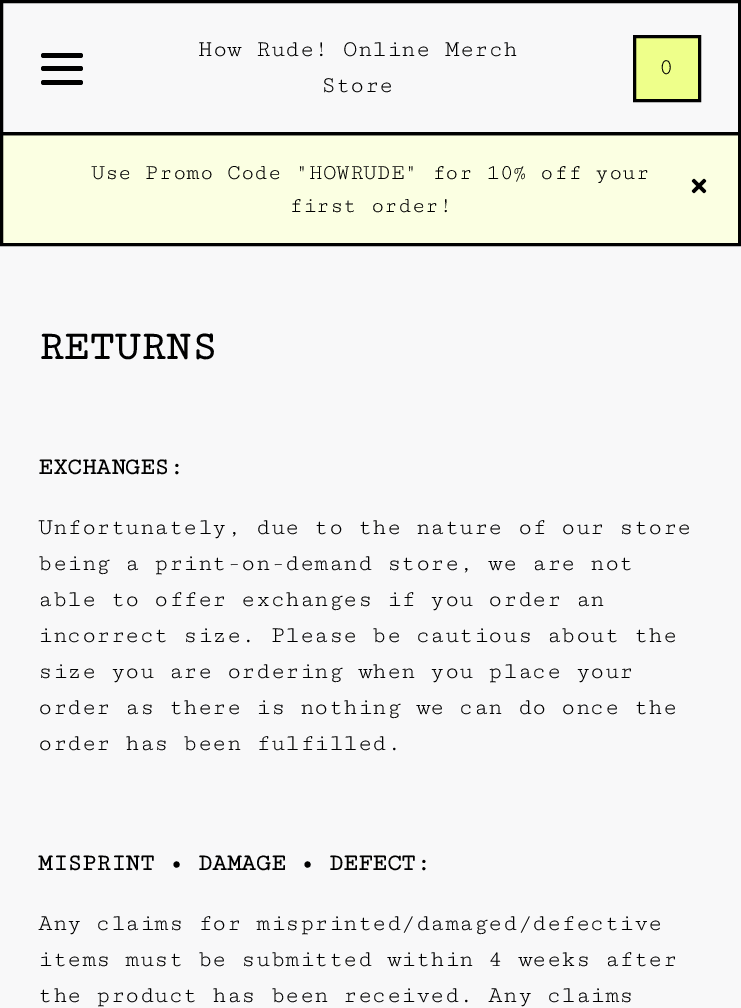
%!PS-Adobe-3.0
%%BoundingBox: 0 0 741 1008
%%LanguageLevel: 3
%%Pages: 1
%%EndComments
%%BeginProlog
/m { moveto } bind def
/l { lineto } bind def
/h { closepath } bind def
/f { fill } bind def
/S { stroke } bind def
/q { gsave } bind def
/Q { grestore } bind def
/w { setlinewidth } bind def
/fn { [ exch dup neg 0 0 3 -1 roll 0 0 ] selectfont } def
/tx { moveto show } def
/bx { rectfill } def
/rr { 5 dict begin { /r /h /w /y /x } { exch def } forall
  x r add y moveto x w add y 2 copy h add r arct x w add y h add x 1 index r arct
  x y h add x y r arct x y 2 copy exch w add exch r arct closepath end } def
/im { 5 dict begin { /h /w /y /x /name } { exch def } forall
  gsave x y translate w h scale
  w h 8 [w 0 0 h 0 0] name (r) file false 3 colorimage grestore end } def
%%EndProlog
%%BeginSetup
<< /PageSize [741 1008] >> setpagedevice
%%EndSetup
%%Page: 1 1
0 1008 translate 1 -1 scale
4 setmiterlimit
0.973 0.973 0.976 setrgbcolor
0 0 741 1008 bx
0.984 1 0.886 setrgbcolor
1.5 133.5 m 739.5 133.5 l 739.5 244.5 l 1.5 244.5 l h q f Q
0 setgray
3 w
S
1.5 1.5 738 132 rectstroke
41 66 42 5 2.5 rr f
41 53 42 5 2.5 rr f
41 80 42 5 2.5 rr f
/CutiveMono-Regular 24 fn
(How Rude! Online Merch) 198 56 tx
(Store) 321 92 tx
0.933 1 0.541 setrgbcolor
634.5 36.5 m 699.5 36.5 l 699.5 100.5 l 634.5 100.5 l h q f Q
0 setgray
S
(0) 659 74 tx
/CutiveMono-Regular 22.5 fn
(Use Promo Code "HOWRUDE" for 10% off your) 91 179 tx
(first order!) 289 212 tx
(image0.raw) 691 178 16 16 im
/CutiveMono-Bold 42 fn
(RETURNS) 38 359 tx
/CutiveMono-Bold 24 fn
(EXCHANGES:) 38 474 tx
/CutiveMono-Regular 24 fn
(Unfortunately, due to the nature of our store) 38 534 tx
(being a print-on-demand store, we are not) 38 570 tx
(able to offer exchanges if you order an) 38 606 tx
(incorrect size. Please be cautious about the) 38 642 tx
(size you are ordering when you place your) 38 678 tx
(order as there is nothing we can do once the) 38 714 tx
(order has been fulfilled.) 38 750 tx
/CutiveMono-Bold 24 fn
(MISPRINT • DAMAGE • DEFECT:) 38 870 tx
/CutiveMono-Regular 24 fn
(Any claims for misprinted/damaged/defective) 38 930 tx
(items must be submitted within 4 weeks after) 38 966 tx
(the product has been received. Any claims) 38 1002 tx
showpage
%%EOF
